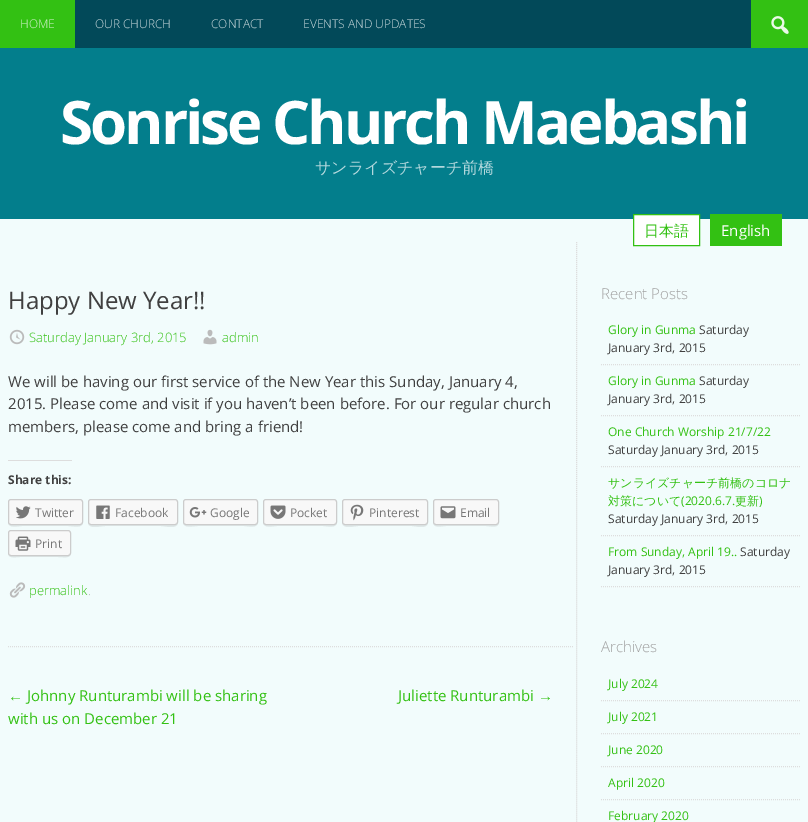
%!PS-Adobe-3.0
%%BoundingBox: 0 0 808 822
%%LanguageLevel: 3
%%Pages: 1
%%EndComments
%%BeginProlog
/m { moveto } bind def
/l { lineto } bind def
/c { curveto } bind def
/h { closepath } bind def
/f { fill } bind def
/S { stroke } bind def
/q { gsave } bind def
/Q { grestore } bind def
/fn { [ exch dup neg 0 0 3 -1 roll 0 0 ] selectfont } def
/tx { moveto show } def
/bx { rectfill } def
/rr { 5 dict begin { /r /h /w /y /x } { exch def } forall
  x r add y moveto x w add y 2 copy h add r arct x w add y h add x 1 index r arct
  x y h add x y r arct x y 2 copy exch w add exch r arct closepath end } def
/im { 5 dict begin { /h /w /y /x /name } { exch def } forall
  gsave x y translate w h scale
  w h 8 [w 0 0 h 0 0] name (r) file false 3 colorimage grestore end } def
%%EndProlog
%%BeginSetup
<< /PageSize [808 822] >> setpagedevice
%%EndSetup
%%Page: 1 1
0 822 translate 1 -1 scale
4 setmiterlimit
0.949 0.988 0.988 setrgbcolor
0 0 808 822 bx
0.008 0.286 0.349 setrgbcolor
75 0 676 48 bx
0.2 0.757 0.075 setrgbcolor
0 0 75 48 bx
/OpenSans-Light 12 fn
0.839 0.953 0.816 setrgbcolor
(HOME) 20 28 tx
0.8 0.859 0.871 setrgbcolor
(OUR CHURCH) 95 28 tx
(CONTACT) 211 28 tx
(EVENTS AND UPDATES) 303 28 tx
0.2 0.757 0.075 setrgbcolor
751 0 57 48 bx
(image0.raw) 771 16 18 18 im
0.012 0.494 0.549 setrgbcolor
0 48 808 171 bx
/OpenSans-Bold 60 fn
1 setgray
60 144 m -3 0 (Sonrise Church Maebashi) ashow
/WenQuanYiZenHei-Medium 16 fn
0.702 0.847 0.867 setrgbcolor
(サンライズチャーチ前橋) 315 173 tx
1 setgray
633.5 214.5 m 699.5 214.5 l 699.5 245.5 l 633.5 245.5 l h q f Q
0.2 0.757 0.075 setrgbcolor
S
/WenQuanYiZenHei-Medium 15 fn
(日本語) 644 236 tx
710 214 72 32 bx
/OpenSans-Regular 15 fn
1 setgray
(English) 721 236 tx
0.867 setgray
[1 1] 0 setdash
576.5 242 m 576.5 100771 l S
8 646.5 m 574 646.5 l S
/OpenSans-Regular 24 fn
0.251 setgray
(Happy New Year!!) 8 309 tx
(image1.raw) 9 329 16 16 im
/OpenSans-Light 13 fn
0.2 0.757 0.075 setrgbcolor
(Saturday January 3rd, 2015) 29 342 tx
(image2.raw) 203 329 14 16 im
(admin) 222 342 tx
/OpenSans-Regular 15 fn
0.251 setgray
(We will be having our first service of the New Year this Sunday, January 4,) 8 387 tx
(2015. Please come and visit if you haven’t been before. For our regular church) 8 409 tx
(members, please come and bring a friend!) 8 432 tx
0.867 setgray
8 460 64 1 bx
/OpenSans-Bold 12 fn
0.251 setgray
(Share this:) 8 484 tx
0.875 0.91 0.91 setrgbcolor
8 522 m 8 529 18 526 22 526 c 68 526 l 73 526 83 529 83 522 c 83 524 82 525 80 525 c 11 525 l 9 525 8 524 8 522 c h f
0.973 setgray
8.5 499.5 74 25 2.5 rr q f Q
0.8 setgray
[] 0 setdash
S
(image3.raw) 16 506 15 13 im
/OpenSans-Regular 12 fn
0.467 setgray
(Twitter) 35 517 tx
0.875 0.91 0.91 setrgbcolor
88 522 m 88 530 101 526 105 526 c 161 526 l 165 526 178 530 178 522 c 178 524 177 525 175 525 c 91 525 l 89 525 88 524 88 522 c h f
0.973 setgray
88.5 499.5 89 25 2.5 rr q f Q
0.8 setgray
S
(image4.raw) 96 505 14 14 im
0.467 setgray
(Facebook) 115 517 tx
0.875 0.91 0.91 setrgbcolor
183 522 m 183 529 193 526 198 526 c 244 526 l 248 526 258 529 258 522 c 258 524 257 525 255 525 c 186 525 l 184 525 183 524 183 522 c h f
0.973 setgray
183.5 499.5 74 25 2.5 rr q f Q
0.8 setgray
S
(image5.raw) 189 507 18 11 im
0.467 setgray
(Google) 210 517 tx
0.875 0.91 0.91 setrgbcolor
263 522 m 263 529 273 526 277 526 c 323 526 l 327 526 337 529 337 522 c 337 524 336 525 334 525 c 266 525 l 264 525 263 524 263 522 c h f
0.973 setgray
263.5 499.5 73 25 2.5 rr q f Q
0.8 setgray
S
(image6.raw) 270 505 16 14 im
0.467 setgray
(Pocket) 290 517 tx
0.875 0.91 0.91 setrgbcolor
342 522 m 342 530 355 526 358 526 c 412 526 l 415 526 428 530 428 522 c 428 524 427 525 425 525 c 345 525 l 343 525 342 524 342 522 c h f
0.973 setgray
342.5 499.5 85 25 2.5 rr q f Q
0.8 setgray
S
(image7.raw) 350 504 14 17 im
0.467 setgray
(Pinterest) 369 517 tx
0.875 0.91 0.91 setrgbcolor
433 522 m 433 529 442 526 446 526 c 486 526 l 490 526 499 529 499 522 c 499 524 498 525 496 525 c 436 525 l 434 525 433 524 433 522 c h f
0.973 setgray
433.5 499.5 65 25 2.5 rr q f Q
0.8 setgray
S
(image8.raw) 440 506 16 13 im
0.467 setgray
(Email) 460 517 tx
0.875 0.91 0.91 setrgbcolor
8 553 m 8 559 16 557 20 557 c 58 557 l 63 557 71 559 71 553 c 71 555 70 556 68 556 c 11 556 l 9 556 8 555 8 553 c h f
0.973 setgray
8.5 530.5 62 25 2.5 rr q f Q
0.8 setgray
S
(image9.raw) 15 536 16 15 im
0.467 setgray
(Print) 35 548 tx
(image10.raw) 9 582 17 16 im
/OpenSans-Light 13 fn
0.2 0.757 0.075 setrgbcolor
(permalink) 29 595 tx
0.733 setgray
(.) 88 595 tx
/LiberationSans-Regular 15 fn
0.2 0.757 0.075 setrgbcolor
(←) 8 701 tx
/OpenSans-Regular 15 fn
(Johnny Runturambi will be sharing) 27 701 tx
(with us on December 21) 8 724 tx
(Juliette Runturambi) 398 701 tx
/LiberationSans-Regular 15 fn
(→) 538 701 tx
/OpenSans-Light 15 fn
0.627 setgray
(Recent Posts) 601 299 tx
0.867 setgray
[1 1] 0 setdash
601 364.5 m 800 364.5 l S
/OpenSans-Regular 12 fn
0.2 0.757 0.075 setrgbcolor
(Glory in Gunma) 608 334 tx
0.251 setgray
(Saturday) 699 334 tx
(January 3rd, 2015) 608 352 tx
0.867 setgray
601 415.5 m 800 415.5 l S
0.2 0.757 0.075 setrgbcolor
(Glory in Gunma) 608 385 tx
0.251 setgray
(Saturday) 699 385 tx
(January 3rd, 2015) 608 403 tx
0.867 setgray
601 466.5 m 800 466.5 l S
0.2 0.757 0.075 setrgbcolor
(One Church Worship 21/7/22) 608 436 tx
0.251 setgray
(Saturday January 3rd, 2015) 608 454 tx
0.867 setgray
601 535.5 m 800 535.5 l S
/WenQuanYiZenHei-Medium 12 fn
0.2 0.757 0.075 setrgbcolor
(サンライズチャーチ前橋のコロナ) 608 487 tx
(対策について) 608 505 tx
/OpenSans-Regular 12 fn
(\(2020.6.7.) 681 505 tx
/WenQuanYiZenHei-Medium 12 fn
(更新) 735 505 tx
/OpenSans-Regular 12 fn
(\)) 759 505 tx
0.251 setgray
(Saturday January 3rd, 2015) 608 523 tx
0.867 setgray
601 586.5 m 800 586.5 l S
0.2 0.757 0.075 setrgbcolor
(From Sunday, April 19..) 608 556 tx
0.251 setgray
(Saturday) 740 556 tx
(January 3rd, 2015) 608 574 tx
/OpenSans-Light 15 fn
0.627 setgray
(Archives) 601 652 tx
0.867 setgray
601 700.5 m 800 700.5 l S
/OpenSans-Regular 12 fn
0.2 0.757 0.075 setrgbcolor
(July 2024) 608 688 tx
0.867 setgray
601 733.5 m 800 733.5 l S
0.2 0.757 0.075 setrgbcolor
(July 2021) 608 721 tx
0.867 setgray
601 766.5 m 800 766.5 l S
0.2 0.757 0.075 setrgbcolor
(June 2020) 608 754 tx
0.867 setgray
601 799.5 m 800 799.5 l S
0.2 0.757 0.075 setrgbcolor
(April 2020) 608 787 tx
(February 2020) 608 820 tx
showpage
%%EOF
